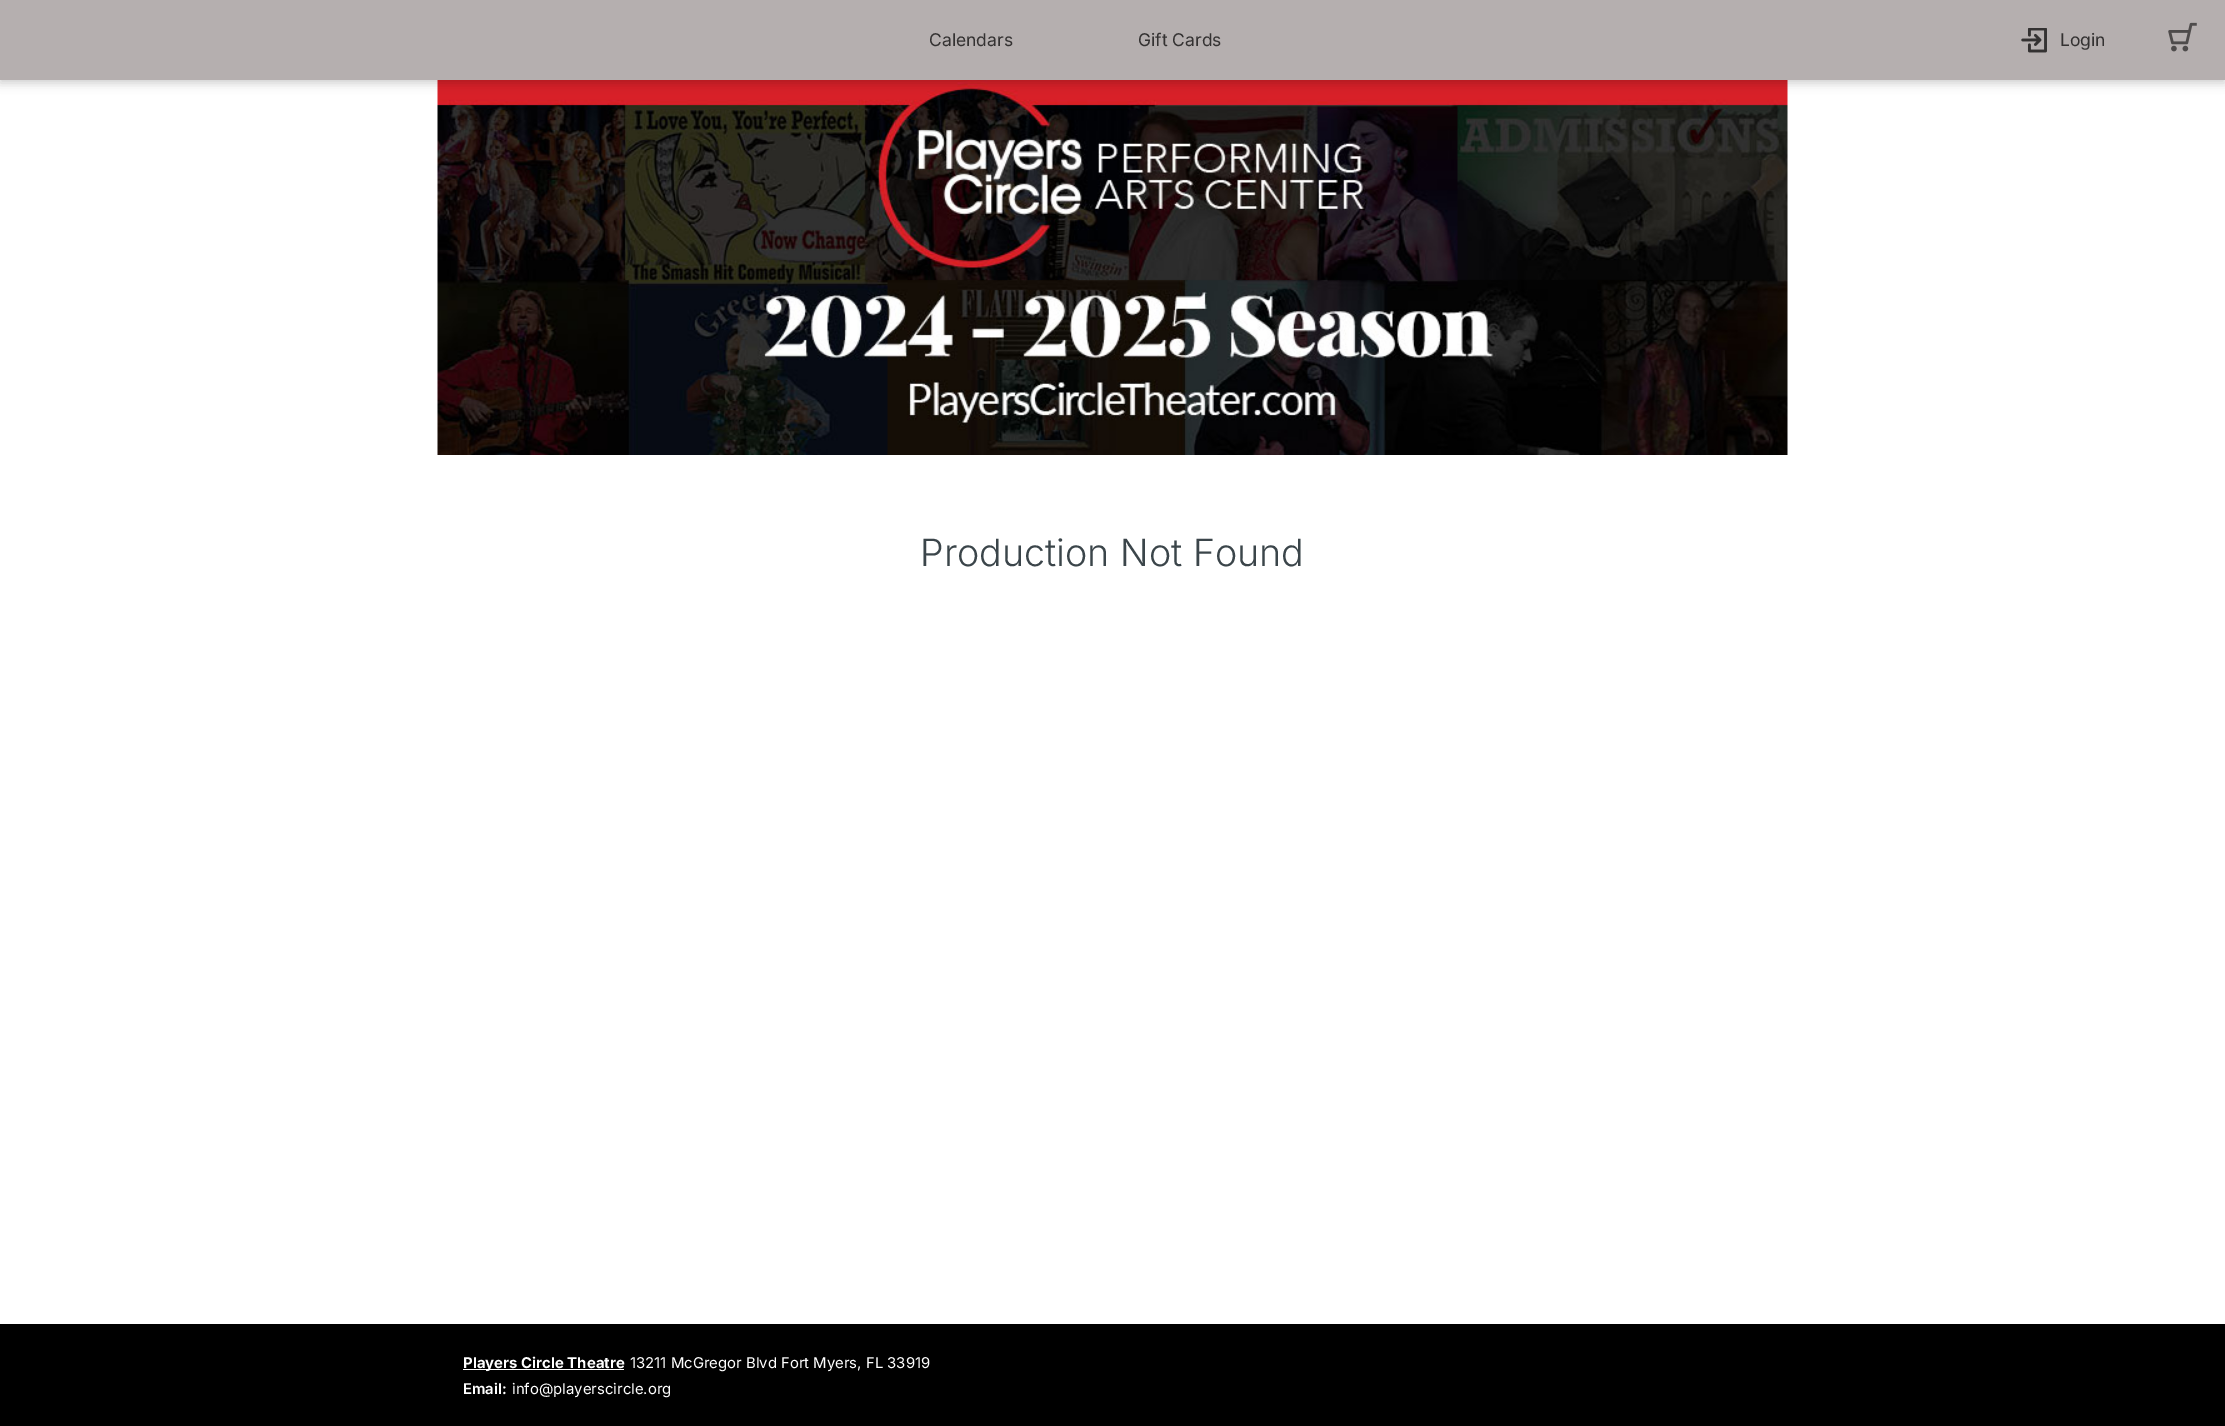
%!PS-Adobe-3.0
%%BoundingBox: 0 0 2225 1426
%%LanguageLevel: 3
%%Pages: 1
%%EndComments
%%BeginProlog
/fn { [ exch dup neg 0 0 3 -1 roll 0 0 ] selectfont } def
/tx { moveto show } def
/bx { rectfill } def
/al { dup .setfillconstantalpha .setstrokeconstantalpha } def
/rr { 5 dict begin { /r /h /w /y /x } { exch def } forall
  x r add y moveto x w add y 2 copy h add r arct x w add y h add x 1 index r arct
  x y h add x y r arct x y 2 copy exch w add exch r arct closepath end } def
/sh { 12 dict begin { /a /b /q /h /w /y /x } { exch def } forall gsave /was 0 def
  9 -2 -9 { dup b mul 4 div /e exch def 1 sub .425 mul 2.718 exch exp 1 add a .99 .min exch div /now exch def
    1 1 now sub 1 was sub div sub al /was now def
    w h .min e 2 mul add 0 gt { x e sub y e sub w e 2 mul add h e 2 mul add
      q e add b .6 mul add w h .min 2 div e add .min 0 .max rr fill } if } for grestore end } def
/im { 5 dict begin { /h /w /y /x /name } { exch def } forall
  gsave x y translate w h scale
  w h 8 [w 0 0 h 0 0] name (r) file false 3 colorimage grestore end } def
%%EndProlog
%%BeginSetup
<< /PageSize [2225 1426] /PageUsesTransparency true >> setpagedevice
%%EndSetup
%%Page: 1 1
0 .pushpdf14devicefilter
0 1426 translate 1 -1 scale
4 setmiterlimit
1 setgray
0 0 2225 1426 bx
(image2.raw) 437 80 1351 375 im
0 setgray
0 3 2225 80 0 5 0.2 sh
0.71 0.686 0.686 setrgbcolor
0 0 2225 80 bx
/Inter-Regular 17.5 fn
0.204 0.196 0.196 setrgbcolor
(Calendars) 929 46 tx
(Gift Cards) 1138 46 tx
(image0.raw) 2021 28 26 25 im
(Login) 2060 46 tx
(image1.raw) 2168 22 29 30 im
/Inter-Light 37.6 fn
0.231 0.271 0.29 setrgbcolor
(Production Not Found) 920 566 tx
0 setgray
0 1324 2225 102 bx
1 setgray
463 1369 161 1 bx
/Inter-Bold 14.9 fn
(Players Circle Theatre) 463 1368 tx
/Inter-Regular 14.9 fn
(13211 McGregor Blvd Fort Myers, FL 33919) 630 1368 tx
/Inter-SemiBold 14.9 fn
(Email:) 463 1394 tx
/Inter-Regular 14.9 fn
(info@playerscircle.org) 512 1394 tx
.poppdf14devicefilter showpage
%%EOF
